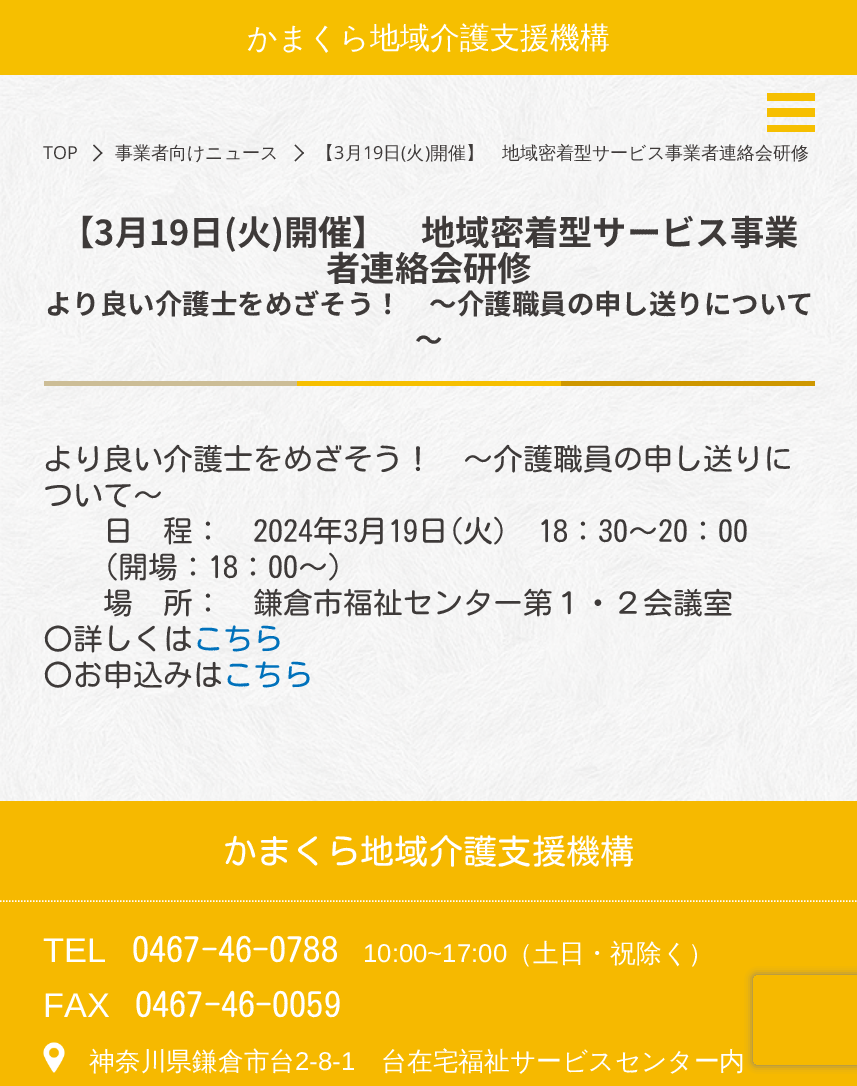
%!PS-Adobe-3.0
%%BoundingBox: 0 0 857 1086
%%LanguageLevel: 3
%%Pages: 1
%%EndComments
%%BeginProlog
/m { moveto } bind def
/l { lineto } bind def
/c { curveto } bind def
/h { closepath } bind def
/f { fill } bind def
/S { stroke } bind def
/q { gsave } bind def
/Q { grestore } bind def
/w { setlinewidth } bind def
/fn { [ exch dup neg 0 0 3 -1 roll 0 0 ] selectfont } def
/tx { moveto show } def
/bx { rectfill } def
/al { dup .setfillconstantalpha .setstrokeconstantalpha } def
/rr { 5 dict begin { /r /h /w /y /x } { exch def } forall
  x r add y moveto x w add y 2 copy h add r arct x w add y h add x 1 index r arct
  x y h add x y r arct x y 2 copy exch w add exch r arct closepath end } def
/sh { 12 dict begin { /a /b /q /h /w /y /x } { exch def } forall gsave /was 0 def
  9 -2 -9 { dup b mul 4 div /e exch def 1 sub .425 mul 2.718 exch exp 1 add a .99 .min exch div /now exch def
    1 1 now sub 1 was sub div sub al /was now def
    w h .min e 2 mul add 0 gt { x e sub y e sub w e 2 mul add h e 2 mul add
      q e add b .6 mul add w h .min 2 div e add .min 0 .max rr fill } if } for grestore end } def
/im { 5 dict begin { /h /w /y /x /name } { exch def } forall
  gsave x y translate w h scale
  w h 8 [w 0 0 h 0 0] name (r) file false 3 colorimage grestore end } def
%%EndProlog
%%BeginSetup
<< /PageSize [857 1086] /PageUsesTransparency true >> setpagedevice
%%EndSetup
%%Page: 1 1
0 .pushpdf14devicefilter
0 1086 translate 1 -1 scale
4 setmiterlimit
1 setgray
0 0 857 1086 bx
(image0.raw) 0 75 857 726 im
0.965 0.749 0 setrgbcolor
0 0 857 75 bx
/WenQuanYiZenHei-Medium 30 fn
1 setgray
(かまくら地域介護支援機構) 247 48 tx
0.965 0.749 0 setrgbcolor
767 108 48 9 bx
767 93 48 8 bx
767 125 48 7 bx
/OpenSans-Regular 18 fn
0.243 0.227 0.224 setrgbcolor
(TOP) 43 159 tx
94 144.5 m 102.5 153 l 101.5 154 l 93 145.5 l h f
101.5 152 m 102.5 153 l 94 161.5 l 93 160.5 l h f
/WenQuanYiZenHei-Medium 18 fn
(事業者向けニュース) 115 159 tx
295.5 144.5 m 304 153 l 303 154 l 294.5 145.5 l h f
303 152 m 304 153 l 295.5 161.5 l 294.5 160.5 l h f
(【) 316 159 tx
/OpenSans-Regular 18 fn
(3) 334 159 tx
/WenQuanYiZenHei-Medium 18 fn
(月) 345 159 tx
/OpenSans-Regular 18 fn
(19) 363 159 tx
/WenQuanYiZenHei-Medium 18 fn
(日 火 開催】　地域密着型サービス事業者連絡会研修) 383 159 tx
/OpenSans-Regular 18 fn
(\() 401 159 tx
(\)) 425 159 tx
/NotoSansJP-Bold 34.3 fn
(【3月19日\(火\)開催】　地域密着型サービス事業) 60 245 tx
(者連絡会研修) 326 281 tx
/NotoSansJP-Bold 27.45 fn
(より良い介護士をめざそう！　～介護職員の申し送りについて) 45 314 tx
(～) 415 350 tx
0.8 0.741 0.588 setrgbcolor
44 381 253 5 bx
0.808 0.592 0 setrgbcolor
561 381 254 5 bx
0.965 0.749 0 setrgbcolor
297 381 264 5 bx
/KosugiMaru-Regular 30 fn
0.243 0.227 0.224 setrgbcolor
(より良い介護士をめざそう！　～介護職員の申し送りに) 43 470 tx
(ついて～) 43 506 tx
(日　程：　2024年3月19日\(火\)　18：30～20：00) 103 542 tx
(\(開場：18：00～\)) 103 578 tx
(場　所：　鎌倉市福祉センター第１・２会議室) 103 614 tx
(〇詳しくは) 43 650 tx
0 0.443 0.733 setrgbcolor
(こちら) 193 650 tx
0.243 0.227 0.224 setrgbcolor
(〇お申込みは) 43 686 tx
0 0.443 0.733 setrgbcolor
(こちら) 223 686 tx
0.965 0.725 0 setrgbcolor
0 801 857 285 bx
1 setgray
1.5 w
[1.5 1.5] 0 setdash
0 901 m 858 901 l S
/KosugiMaru-Regular 34.3 fn
(かまくら地域介護支援機構) 223 864 tx
/LiberationSans-Regular 34.3 fn
(TEL) 43 962 tx
/KosugiMaru-Regular 34.3 fn
(0467-46-0788) 132 962 tx
/LiberationSans-Regular 25.75 fn
(10:00~17:00) 363 962 tx
/WenQuanYiZenHei-Medium 25.75 fn
(（土日・祝除く）) 507 962 tx
/LiberationSans-Regular 34.3 fn
(FAX) 43 1017 tx
/KosugiMaru-Regular 34.3 fn
(0467-46-0059) 135 1017 tx
(image1.raw) 43 1042 22 31 im
/WenQuanYiZenHei-Medium 25.75 fn
(神奈川県鎌倉市台) 89 1070 tx
/LiberationSans-Regular 25.75 fn
(2-8-1) 295 1070 tx
/WenQuanYiZenHei-Medium 25.75 fn
(台在宅福祉サービスセンター内) 381 1070 tx
q
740 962 m 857 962 l 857 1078 l 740 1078 l h 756 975 m 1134 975 l 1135.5 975 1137 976.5 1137 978 c 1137 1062 l 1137 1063.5 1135.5 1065 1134 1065 c 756 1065 l 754.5 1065 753 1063.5 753 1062 c 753 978 l 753 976.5 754.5 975 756 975 c h eoclip newpath
0.502 setgray
753 975 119 90 3 4 1 sh
Q
.poppdf14devicefilter showpage
%%EOF
